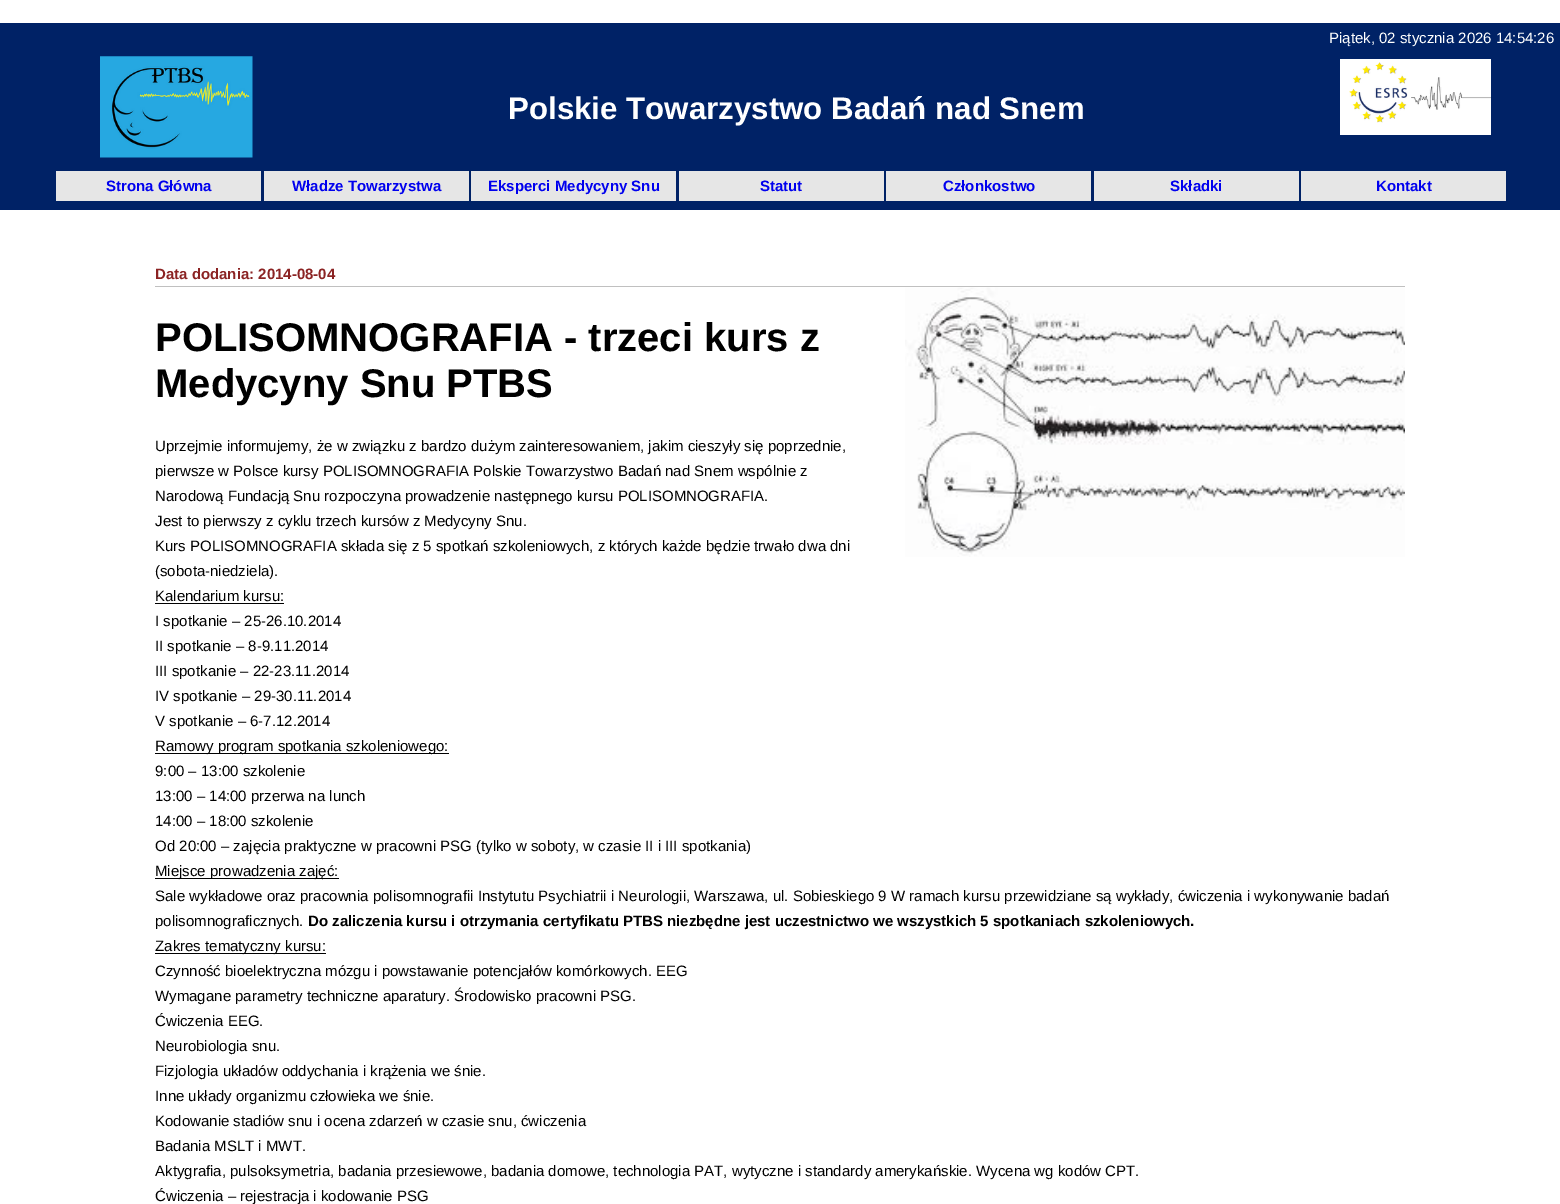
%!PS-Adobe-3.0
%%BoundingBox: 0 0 1560 1204
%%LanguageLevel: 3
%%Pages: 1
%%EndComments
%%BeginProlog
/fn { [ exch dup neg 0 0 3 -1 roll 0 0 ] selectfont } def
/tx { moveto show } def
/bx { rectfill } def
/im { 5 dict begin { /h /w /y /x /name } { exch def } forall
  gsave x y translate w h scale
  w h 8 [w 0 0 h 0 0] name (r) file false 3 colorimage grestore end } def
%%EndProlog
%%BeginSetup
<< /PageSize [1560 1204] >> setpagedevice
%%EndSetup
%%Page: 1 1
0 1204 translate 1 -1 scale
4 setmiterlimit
1 setgray
0 0 1560 1204 bx
0 0.133 0.4 setrgbcolor
0 23 1560 187 bx
/LiberationSans-Regular 15 fn
1 setgray
(Piątek, 02 stycznia 2026 14:54:26) 1329 43 tx
(image0.raw) 100 56 153 102 im
/LiberationSans-Bold 31.25 fn
(Polskie Towarzystwo Badań nad Snem) 508 119 tx
1340 59 151 76 bx
(image1.raw) 1349 62 143 61 im
0.902 setgray
56 171 205 30 bx
/LiberationSans-Bold 15 fn
0 0 0.933 setrgbcolor
(Strona Główna) 106 191 tx
0.902 setgray
264 171 205 30 bx
0 0 0.933 setrgbcolor
(Władze Towarzystwa) 292 191 tx
0.902 setgray
471 171 205 30 bx
0 0 0.933 setrgbcolor
(Eksperci Medycyny Snu) 488 191 tx
0.902 setgray
679 171 205 30 bx
0 0 0.933 setrgbcolor
(Statut) 760 191 tx
0.902 setgray
886 171 205 30 bx
0 0 0.933 setrgbcolor
(Członkostwo) 943 191 tx
0.902 setgray
1094 171 205 30 bx
0 0 0.933 setrgbcolor
(Składki) 1170 191 tx
0.902 setgray
1301 171 205 30 bx
0 0 0.933 setrgbcolor
(Kontakt) 1376 191 tx
0.753 setgray
155 286 1250 1 bx
0.545 0.137 0.137 setrgbcolor
(Data dodania: 2014-08-04) 155 279 tx
/LiberationSans-Bold 40 fn
0 setgray
(POLISOMNOGRAFIA - trzeci kurs z) 155 351 tx
(Medycyny Snu PTBS) 155 397 tx
(image2.raw) 905 287 500 270 im
/LiberationSans-Regular 15 fn
(Uprzejmie informujemy, że w związku z bardzo dużym zainteresowaniem, jakim cieszyły się poprzednie,) 155 451 tx
(pierwsze w Polsce kursy POLISOMNOGRAFIA Polskie Towarzystwo Badań nad Snem wspólnie z) 155 476 tx
(Narodową Fundacją Snu rozpoczyna prowadzenie następnego kursu POLISOMNOGRAFIA.) 155 501 tx
(Jest to pierwszy z cyklu trzech kursów z Medycyny Snu.) 155 526 tx
(Kurs POLISOMNOGRAFIA składa się z 5 spotkań szkoleniowych, z których każde będzie trwało dwa dni) 155 551 tx
(\(sobota-niedziela\).) 155 576 tx
(Kalendarium kursu:) 155 601 tx
155 603 129 1 bx
(I spotkanie – 25-26.10.2014) 155 626 tx
(II spotkanie – 8-9.11.2014) 155 651 tx
(III spotkanie – 22-23.11.2014) 155 676 tx
(IV spotkanie – 29-30.11.2014) 155 701 tx
(V spotkanie – 6-7.12.2014) 155 726 tx
155 753 294 1 bx
(Ramowy program spotkania szkoleniowego:) 155 751 tx
(9:00 – 13:00 szkolenie) 155 776 tx
(13:00 – 14:00 przerwa na lunch) 155 801 tx
(14:00 – 18:00 szkolenie) 155 826 tx
(Od 20:00 – zajęcia praktyczne w pracowni PSG \(tylko w soboty, w czasie II i III spotkania\)) 155 851 tx
155 878 184 1 bx
(Miejsce prowadzenia zajęć:) 155 876 tx
(Sale wykładowe oraz pracownia polisomnografii Instytutu Psychiatrii i Neurologii, Warszawa, ul. Sobieskiego 9 W ramach kursu przewidziane są wykłady, ćwiczenia i wykonywanie badań) 155 901 tx
(polisomnograficznych.) 155 926 tx
/LiberationSans-Bold 15 fn
(Do zaliczenia kursu i otrzymania certyfikatu PTBS niezbędne jest uczestnictwo we wszystkich 5 spotkaniach szkoleniowych.) 308 926 tx
155 953 171 1 bx
/LiberationSans-Regular 15 fn
(Zakres tematyczny kursu:) 155 951 tx
(Czynność bioelektryczna mózgu i powstawanie potencjałów komórkowych. EEG) 155 976 tx
(Wymagane parametry techniczne aparatury. Środowisko pracowni PSG.) 155 1001 tx
(Ćwiczenia EEG.) 155 1026 tx
(Neurobiologia snu.) 155 1051 tx
(Fizjologia układów oddychania i krążenia we śnie.) 155 1076 tx
(Inne układy organizmu człowieka we śnie.) 155 1101 tx
(Kodowanie stadiów snu i ocena zdarzeń w czasie snu, ćwiczenia) 155 1126 tx
(Badania MSLT i MWT.) 155 1151 tx
(Aktygrafia, pulsoksymetria, badania przesiewowe, badania domowe, technologia PAT, wytyczne i standardy amerykańskie. Wycena wg kodów CPT.) 155 1176 tx
(Ćwiczenia – rejestracja i kodowanie PSG) 155 1201 tx
showpage
%%EOF
